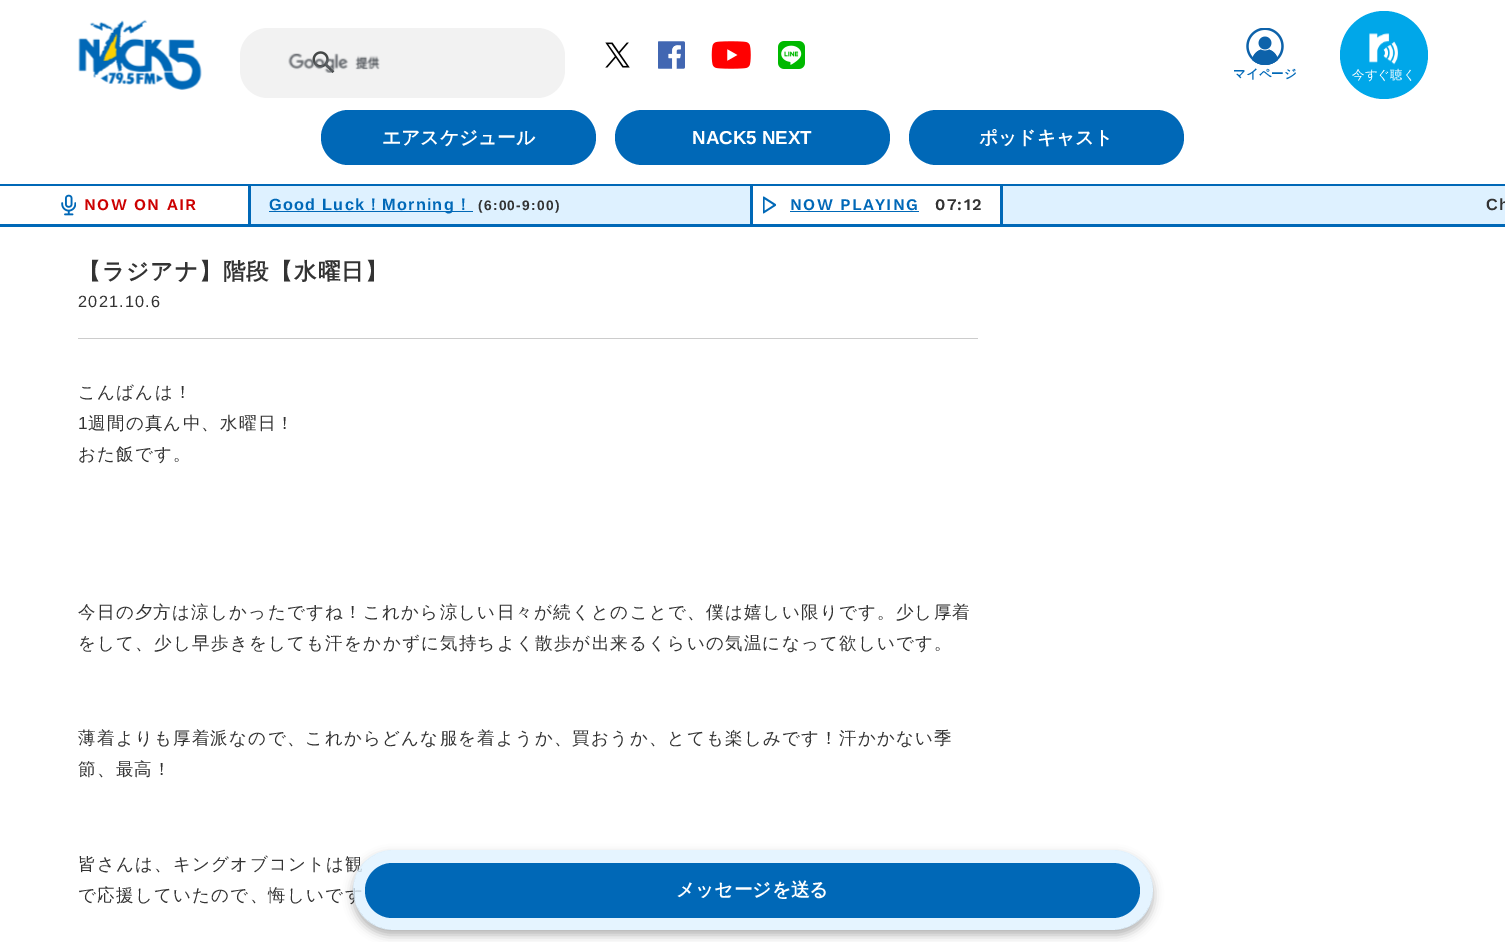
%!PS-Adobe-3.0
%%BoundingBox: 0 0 1505 942
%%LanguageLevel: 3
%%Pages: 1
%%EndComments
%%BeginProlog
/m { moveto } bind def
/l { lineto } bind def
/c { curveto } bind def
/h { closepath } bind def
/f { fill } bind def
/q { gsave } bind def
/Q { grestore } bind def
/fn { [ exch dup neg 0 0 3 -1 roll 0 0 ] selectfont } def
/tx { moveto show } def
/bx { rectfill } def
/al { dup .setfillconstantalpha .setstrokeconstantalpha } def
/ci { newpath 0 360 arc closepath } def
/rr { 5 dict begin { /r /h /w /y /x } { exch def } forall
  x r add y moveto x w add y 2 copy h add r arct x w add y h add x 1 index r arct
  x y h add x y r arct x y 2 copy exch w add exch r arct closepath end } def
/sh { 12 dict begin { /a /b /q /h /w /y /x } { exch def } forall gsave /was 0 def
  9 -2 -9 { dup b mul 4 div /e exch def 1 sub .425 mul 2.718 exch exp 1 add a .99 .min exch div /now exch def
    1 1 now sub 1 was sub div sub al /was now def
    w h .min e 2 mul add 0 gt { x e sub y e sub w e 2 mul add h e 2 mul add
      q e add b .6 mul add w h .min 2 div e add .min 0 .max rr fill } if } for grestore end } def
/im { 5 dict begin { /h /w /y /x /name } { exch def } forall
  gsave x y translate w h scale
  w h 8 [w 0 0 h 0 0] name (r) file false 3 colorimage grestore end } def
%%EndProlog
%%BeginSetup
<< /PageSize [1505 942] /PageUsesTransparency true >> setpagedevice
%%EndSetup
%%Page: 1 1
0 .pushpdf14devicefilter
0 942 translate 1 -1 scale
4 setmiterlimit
1 setgray
0 0 1505 942 bx
(image0.raw) 78 19 124 71 im
0.949 setgray
240 28 325 70 28 rr f
(image1.raw) 312 51 23 22 im
(image2.raw) 288 53 92 20 im
(image3.raw) 605 42 25 26 im
(image4.raw) 658 41 27 28 im
(image5.raw) 711 41 40 28 im
(image6.raw) 778 41 27 28 im
(image7.raw) 1246 28 38 37 im
/WenQuanYiZenHei-Bold 12.5 fn
0 0.408 0.718 setrgbcolor
(マイページ) 1233 78 tx
0 0.655 0.914 setrgbcolor
1384 55 44 ci f
(image8.raw) 1369 33 29 32 im
/WenQuanYiZenHei-Medium 12.5 fn
1 setgray
(今すぐ聴く) 1352 79 tx
0 0.408 0.718 setrgbcolor
321 110 275 55 27.5 rr f
/WenQuanYiZenHei-Bold 18.75 fn
1 setgray
(エアスケジュール) 382 144 tx
0 0.408 0.718 setrgbcolor
615 110 275 55 27.5 rr f
/LiberationSans-Bold 18.75 fn
1 setgray
(NACK5 NEXT) 692 144 tx
0 0.408 0.718 setrgbcolor
909 110 275 55 27.5 rr f
/WenQuanYiZenHei-Bold 18.75 fn
1 setgray
(ポッドキャスト) 979 144 tx
0 0.408 0.718 setrgbcolor
0 184 1505 2 bx
0 224 1505 3 bx
0.871 0.945 1 setrgbcolor
251 186 499 38 bx
(image9.raw) 61 194 15 22 im
0 0.408 0.718 setrgbcolor
248 186 3 38 bx
/WorkSans-SemiBold 16.25 fn
0.8 0 0 setrgbcolor
84 210 m 1.25 0 (NOW ON AIR) ashow
0 0.408 0.718 setrgbcolor
750 186 3 38 bx
/LiberationSans-Bold 16.25 fn
269 210 m 1.25 0 (Good Luck) ashow
/WenQuanYiZenHei-Bold 16.25 fn
365 210 m 1.25 0 (！) ashow
269 211 204 1 bx
/LiberationSans-Bold 16.25 fn
382 210 m 1.25 0 (Morning) ashow
/WenQuanYiZenHei-Bold 16.25 fn
455 210 m 1.25 0 (！) ashow
/LiberationSans-Bold 13.75 fn
0.2 setgray
478 210 m 1.25 0 (\(6:00-9:00\)) ashow
0.871 0.945 1 setrgbcolor
1003 186 502 38 bx
(image10.raw) 763 196 13 18 im
0 0.408 0.718 setrgbcolor
1000 186 3 38 bx
/WorkSans-SemiBold 16.25 fn
790 210 m 1.25 0 (NOW PLAYING) ashow
790 211 129 1 bx
0.2 setgray
935 210 m 1.25 0 (07:12) ashow
/LiberationSans-Bold 16.25 fn
1486 210 m 1.25 0 (Ch) ashow
0.8 setgray
78 338 900 1 bx
/WenQuanYiZenHei-Bold 22.5 fn
0.2 setgray
78 279 m 1.25 0 (【ラジアナ】階段【水曜日】) ashow
/LiberationSans-Regular 16.25 fn
78 307 m 1.25 0 (2021.10.6) ashow
/WenQuanYiZenHei-Medium 17.5 fn
78 398 m 1.25 0 (こんばんは！) ashow
/LiberationSans-Regular 17.5 fn
78 429 m 1.25 0 (1) ashow
/WenQuanYiZenHei-Medium 17.5 fn
88 429 m 1.25 0 (週間の真ん中、水曜日！) ashow
78 460 m 1.25 0 (おた飯です。) ashow
78 618 m 1.25 0 (今日の夕方は涼しかったですね！これから涼しい日々が続くとのことで、僕は嬉しい限りです。少し厚着) ashow
78 649 m 1.25 0 (をして、少し早歩きをしても汗をかかずに気持ちよく散歩が出来るくらいの気温になって欲しいです。) ashow
78 744 m 1.25 0 (薄着よりも厚着派なので、これからどんな服を着ようか、買おうか、とても楽しみです！汗かかない季) ashow
78 775 m 1.25 0 (節、最高！) ashow
78 870 m 1.25 0 (皆さんは、キングオブコントは観) ashow
78 901 m 1.25 0 (で応援していたので、悔しいです) ashow
q
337 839 m 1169 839 l 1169 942 l 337 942 l h 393 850 m 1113 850 l 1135 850 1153 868 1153 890 c 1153 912 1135 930 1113 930 c 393 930 l 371 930 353 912 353 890 c 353 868 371 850 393 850 c h eoclip newpath
0 setgray
353 855 800 80 40 5 0.3 sh
Q
0.8 al
0.871 0.945 1 setrgbcolor
353 850 800 80 40 rr f
1 al
0 0.408 0.718 setrgbcolor
365 863 775 55 27.5 rr f
/WenQuanYiZenHei-Bold 18.75 fn
1 setgray
(メッセージを送る) 676 896 tx
.poppdf14devicefilter showpage
%%EOF
